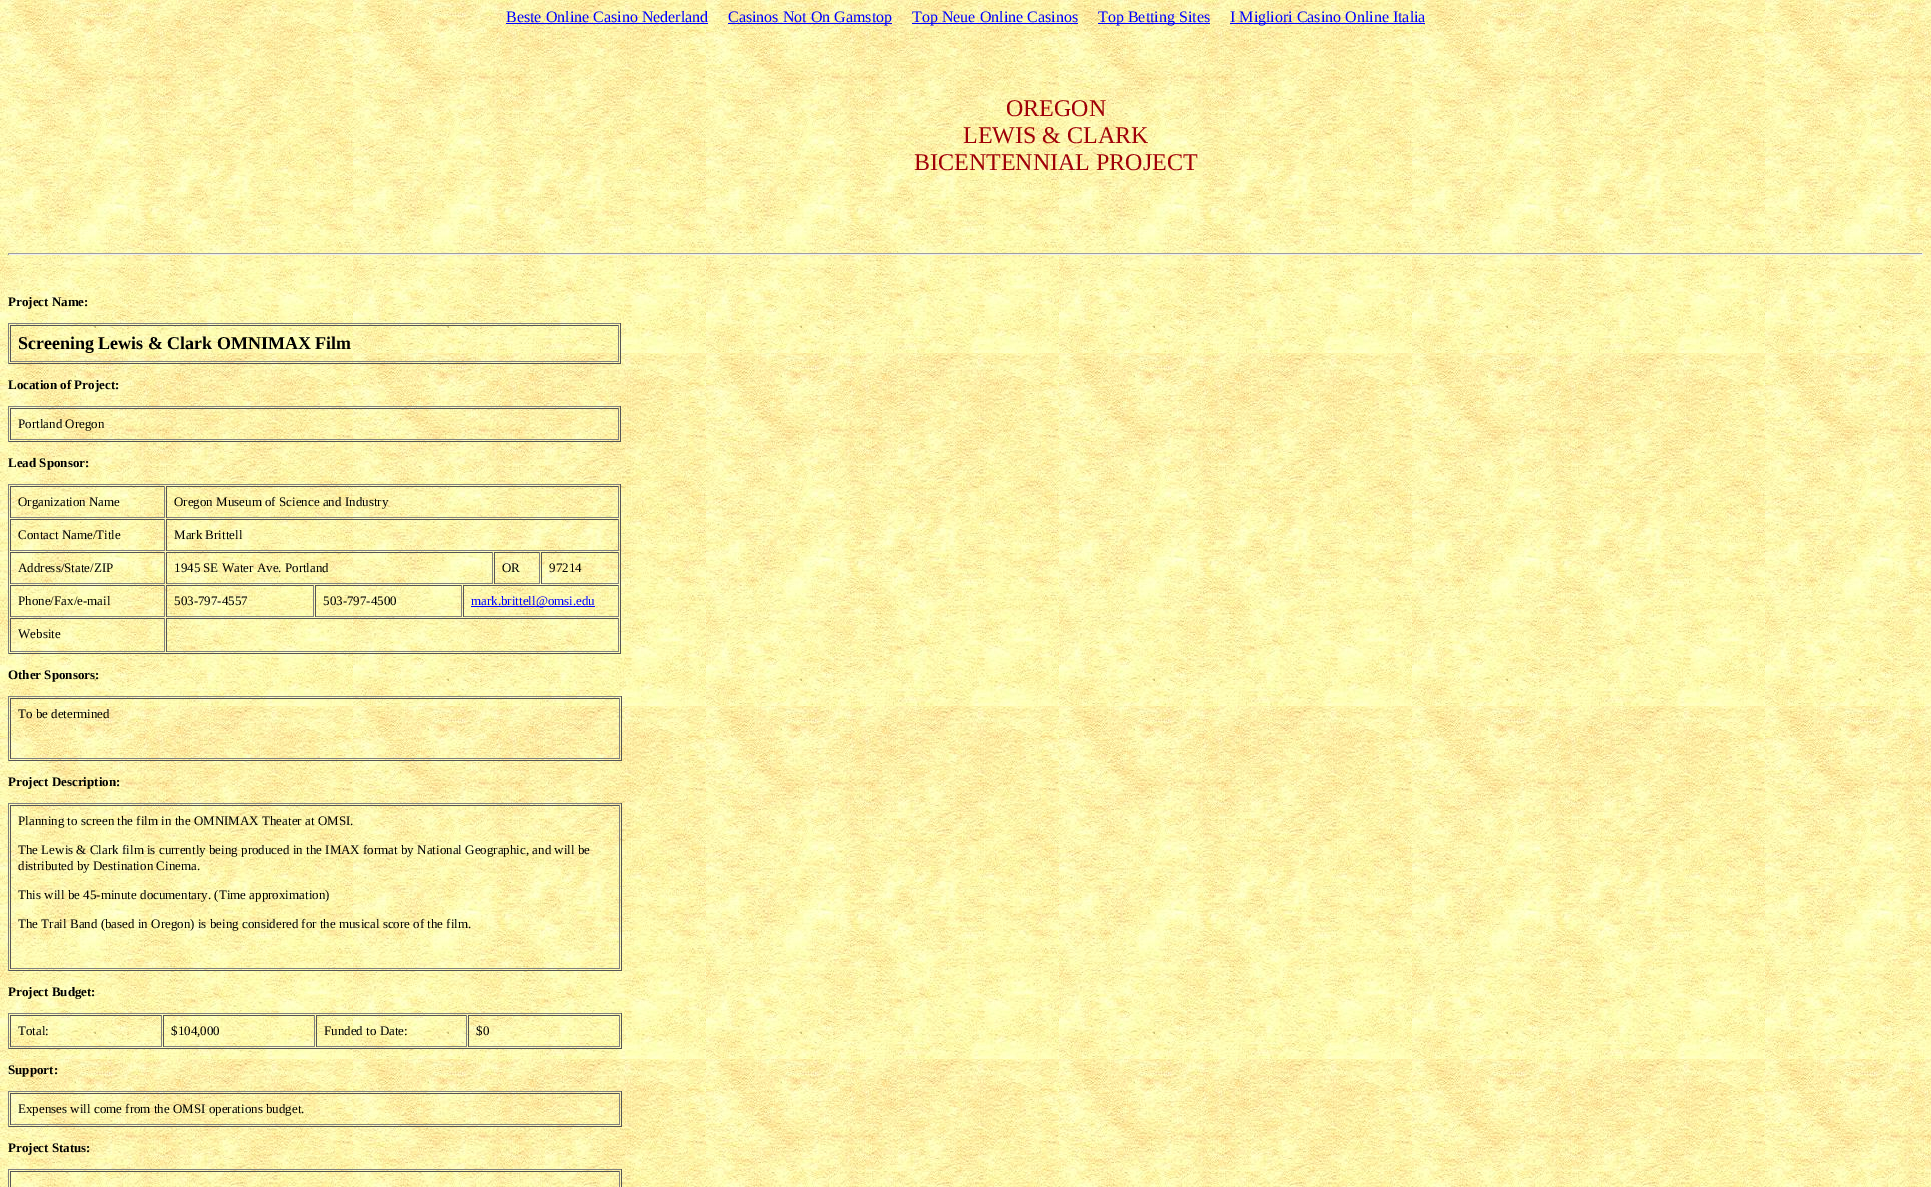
%!PS-Adobe-3.0
%%BoundingBox: 0 0 1931 1187
%%LanguageLevel: 3
%%Pages: 1
%%EndComments
%%BeginProlog
/fn { [ exch dup neg 0 0 3 -1 roll 0 0 ] selectfont } def
/tx { moveto show } def
/bx { rectfill } def
/im { 5 dict begin { /h /w /y /x /name } { exch def } forall
  gsave x y translate w h scale
  w h 8 [w 0 0 h 0 0] name (r) file false 3 colorimage grestore end } def
%%EndProlog
%%BeginSetup
<< /PageSize [1931 1187] >> setpagedevice
%%EndSetup
%%Page: 1 1
0 1187 translate 1 -1 scale
4 setmiterlimit
1 setgray
0 0 1931 1187 bx
(image0.raw) 0 0 1931 1187 im
/LiberationSerif-Regular 16 fn
0 0 1 setrgbcolor
(Beste Online Casino Nederland) 506 22 tx
506 23 202 1 bx
728 23 164 1 bx
(Casinos Not On Gamstop) 728 22 tx
912 23 166 1 bx
(Top Neue Online Casinos) 912 22 tx
1098 23 112 1 bx
(Top Betting Sites) 1098 22 tx
1230 23 195 1 bx
(I Migliori Casino Online Italia) 1230 22 tx
/LiberationSerif-Regular 24 fn
0.627 0 0.031 setrgbcolor
(OREGON) 1006 116 tx
(LEWIS & CLARK) 963 143 tx
(BICENTENNIAL PROJECT) 914 170 tx
0.624 setgray
8 253 1915 1 bx
0.933 setgray
1922 253 1 2 bx
8 254 1915 1 bx
0.624 setgray
8 253 1 2 bx
/LiberationSerif-Bold 13 fn
0 setgray
(Project Name:) 8 306 tx
0.502 setgray
8 323 613 1 bx
0.333 setgray
620 323 1 41 bx
8 363 613 1 bx
0.502 setgray
8 323 1 41 bx
0.333 setgray
10 325 609 1 bx
0.502 setgray
618 325 1 37 bx
10 361 609 1 bx
0.333 setgray
10 325 1 37 bx
/LiberationSerif-Bold 18 fn
0 setgray
(Screening Lewis & Clark OMNIMAX Film) 18 349 tx
/LiberationSerif-Bold 13 fn
(Location of Project:) 8 389 tx
0.502 setgray
8 406 613 1 bx
0.333 setgray
620 406 1 36 bx
8 441 613 1 bx
0.502 setgray
8 406 1 36 bx
0.333 setgray
10 408 609 1 bx
0.502 setgray
618 408 1 32 bx
10 439 609 1 bx
0.333 setgray
10 408 1 32 bx
/LiberationSerif-Regular 13 fn
0 setgray
(Portland Oregon) 18 428 tx
/LiberationSerif-Bold 13 fn
(Lead Sponsor:) 8 467 tx
0.502 setgray
8 484 613 1 bx
0.333 setgray
620 484 1 170 bx
8 653 613 1 bx
0.502 setgray
8 484 1 170 bx
0.333 setgray
10 486 155 1 bx
0.502 setgray
164 486 1 32 bx
10 517 155 1 bx
0.333 setgray
10 486 1 32 bx
/LiberationSerif-Regular 13 fn
0 setgray
(Organization Name) 18 506 tx
0.333 setgray
166 486 453 1 bx
0.502 setgray
618 486 1 32 bx
166 517 453 1 bx
0.333 setgray
166 486 1 32 bx
0 setgray
(Oregon Museum of Science and Industry) 174 506 tx
0.333 setgray
10 519 155 1 bx
0.502 setgray
164 519 1 32 bx
10 550 155 1 bx
0.333 setgray
10 519 1 32 bx
0 setgray
(Contact Name/Title) 18 539 tx
0.333 setgray
166 519 453 1 bx
0.502 setgray
618 519 1 32 bx
166 550 453 1 bx
0.333 setgray
166 519 1 32 bx
0 setgray
(Mark Brittell) 174 539 tx
0.333 setgray
10 552 155 1 bx
0.502 setgray
164 552 1 32 bx
10 583 155 1 bx
0.333 setgray
10 552 1 32 bx
0 setgray
(Address/State/ZIP) 18 572 tx
0.333 setgray
166 552 327 1 bx
0.502 setgray
492 552 1 32 bx
166 583 327 1 bx
0.333 setgray
166 552 1 32 bx
0 setgray
(1945 SE Water Ave. Portland) 174 572 tx
0.333 setgray
494 552 46 1 bx
0.502 setgray
539 552 1 32 bx
494 583 46 1 bx
0.333 setgray
494 552 1 32 bx
0 setgray
(OR) 502 572 tx
0.333 setgray
541 552 78 1 bx
0.502 setgray
618 552 1 32 bx
541 583 78 1 bx
0.333 setgray
541 552 1 32 bx
0 setgray
(97214) 549 572 tx
0.333 setgray
10 585 155 1 bx
0.502 setgray
164 585 1 32 bx
10 616 155 1 bx
0.333 setgray
10 585 1 32 bx
0 setgray
(Phone/Fax/e-mail) 18 605 tx
0.333 setgray
166 585 148 1 bx
0.502 setgray
313 585 1 32 bx
166 616 148 1 bx
0.333 setgray
166 585 1 32 bx
0 setgray
(503-797-4557) 174 605 tx
0.333 setgray
315 585 147 1 bx
0.502 setgray
461 585 1 32 bx
315 616 147 1 bx
0.333 setgray
315 585 1 32 bx
0 setgray
(503-797-4500) 323 605 tx
0.333 setgray
463 585 156 1 bx
0.502 setgray
618 585 1 32 bx
463 616 156 1 bx
0.333 setgray
463 585 1 32 bx
0 0 1 setrgbcolor
471 606 124 1 bx
(mark.brittell@omsi.edu) 471 605 tx
0.333 setgray
10 618 155 1 bx
0.502 setgray
164 618 1 34 bx
10 651 155 1 bx
0.333 setgray
10 618 1 34 bx
0 setgray
(Website) 18 638 tx
0.333 setgray
166 618 453 1 bx
0.502 setgray
618 618 1 34 bx
166 651 453 1 bx
0.333 setgray
166 618 1 34 bx
/LiberationSerif-Bold 13 fn
0 setgray
(Other Sponsors:) 8 679 tx
0.502 setgray
8 696 614 1 bx
0.333 setgray
621 696 1 65 bx
8 760 614 1 bx
0.502 setgray
8 696 1 65 bx
0.333 setgray
10 698 610 1 bx
0.502 setgray
619 698 1 61 bx
10 758 610 1 bx
0.333 setgray
10 698 1 61 bx
/LiberationSerif-Regular 13 fn
0 setgray
(To be determined) 18 718 tx
/LiberationSerif-Bold 13 fn
(Project Description:) 8 786 tx
0.502 setgray
8 803 614 1 bx
0.333 setgray
621 803 1 168 bx
8 970 614 1 bx
0.502 setgray
8 803 1 168 bx
0.333 setgray
10 805 610 1 bx
0.502 setgray
619 805 1 164 bx
10 968 610 1 bx
0.333 setgray
10 805 1 164 bx
/LiberationSerif-Regular 13 fn
0 setgray
(Planning to screen the film in the OMNIMAX Theater at OMSI.) 18 825 tx
(The Lewis & Clark film is currently being produced in the IMAX format by National Geographic, and will be) 18 854 tx
(distributed by Destination Cinema.) 18 870 tx
(This will be 45-minute documentary. \(Time approximation\)) 18 899 tx
(The Trail Band \(based in Oregon\) is being considered for the musical score of the film.) 18 928 tx
/LiberationSerif-Bold 13 fn
(Project Budget:) 8 996 tx
0.502 setgray
8 1013 614 1 bx
0.333 setgray
621 1013 1 36 bx
8 1048 614 1 bx
0.502 setgray
8 1013 1 36 bx
0.333 setgray
10 1015 152 1 bx
0.502 setgray
161 1015 1 32 bx
10 1046 152 1 bx
0.333 setgray
10 1015 1 32 bx
/LiberationSerif-Regular 13 fn
0 setgray
(Total:) 18 1035 tx
0.333 setgray
163 1015 152 1 bx
0.502 setgray
314 1015 1 32 bx
163 1046 152 1 bx
0.333 setgray
163 1015 1 32 bx
0 setgray
($104,000) 171 1035 tx
0.333 setgray
316 1015 151 1 bx
0.502 setgray
466 1015 1 32 bx
316 1046 151 1 bx
0.333 setgray
316 1015 1 32 bx
0 setgray
(Funded to Date:) 324 1035 tx
0.333 setgray
468 1015 152 1 bx
0.502 setgray
619 1015 1 32 bx
468 1046 152 1 bx
0.333 setgray
468 1015 1 32 bx
0 setgray
($0) 476 1035 tx
/LiberationSerif-Bold 13 fn
(Support:) 8 1074 tx
0.502 setgray
8 1091 614 1 bx
0.333 setgray
621 1091 1 36 bx
8 1126 614 1 bx
0.502 setgray
8 1091 1 36 bx
0.333 setgray
10 1093 610 1 bx
0.502 setgray
619 1093 1 32 bx
10 1124 610 1 bx
0.333 setgray
10 1093 1 32 bx
/LiberationSerif-Regular 13 fn
0 setgray
(Expenses will come from the OMSI operations budget.) 18 1113 tx
/LiberationSerif-Bold 13 fn
(Project Status:) 8 1152 tx
0.502 setgray
8 1169 614 1 bx
0.333 setgray
621 1169 1 18 bx
0.502 setgray
8 1169 1 18 bx
0.333 setgray
10 1171 610 1 bx
0.502 setgray
619 1171 1 16 bx
0.333 setgray
10 1171 1 16 bx
showpage
%%EOF
